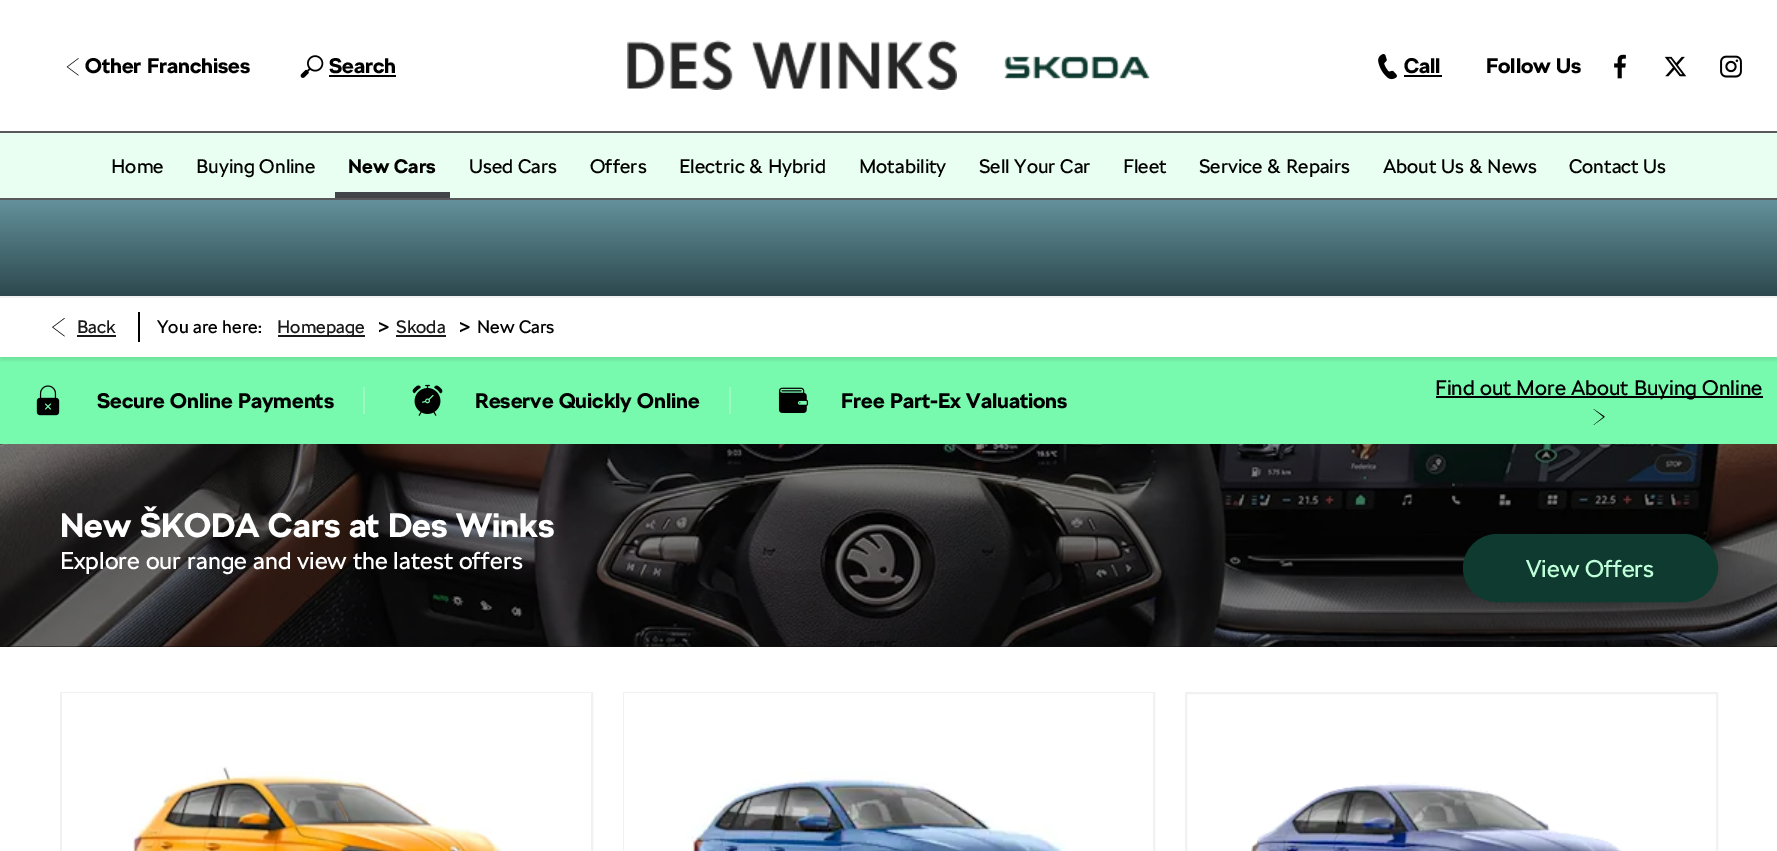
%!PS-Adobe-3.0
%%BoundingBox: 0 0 1777 851
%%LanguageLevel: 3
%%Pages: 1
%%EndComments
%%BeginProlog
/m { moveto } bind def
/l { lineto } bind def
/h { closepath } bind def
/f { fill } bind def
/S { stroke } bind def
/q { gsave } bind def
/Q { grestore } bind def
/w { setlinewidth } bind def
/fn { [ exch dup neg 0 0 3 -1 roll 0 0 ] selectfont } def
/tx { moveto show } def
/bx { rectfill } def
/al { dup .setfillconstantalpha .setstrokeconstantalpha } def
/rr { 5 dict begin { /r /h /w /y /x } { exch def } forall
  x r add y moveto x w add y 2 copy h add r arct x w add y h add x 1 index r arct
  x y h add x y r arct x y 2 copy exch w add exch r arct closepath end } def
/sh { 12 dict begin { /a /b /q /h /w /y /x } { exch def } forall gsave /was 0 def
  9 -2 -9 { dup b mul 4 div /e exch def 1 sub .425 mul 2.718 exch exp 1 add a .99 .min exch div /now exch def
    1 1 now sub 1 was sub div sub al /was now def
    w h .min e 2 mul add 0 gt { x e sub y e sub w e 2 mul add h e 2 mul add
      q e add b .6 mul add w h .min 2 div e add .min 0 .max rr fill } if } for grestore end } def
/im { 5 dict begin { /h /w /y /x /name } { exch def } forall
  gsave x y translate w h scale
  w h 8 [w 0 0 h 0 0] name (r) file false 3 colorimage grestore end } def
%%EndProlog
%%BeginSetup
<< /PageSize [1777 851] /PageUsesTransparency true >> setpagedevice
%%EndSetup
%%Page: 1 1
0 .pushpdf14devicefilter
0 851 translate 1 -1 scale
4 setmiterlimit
1 setgray
0 0 1777 851 bx
(image0.raw) 627 40 330 50 im
(image1.raw) 1004 56 146 23 im
(image2.raw) 66 58 13 18 im
/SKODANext-Bold 21 fn
0 setgray
(Other Franchises) 85 73 tx
(image3.raw) 300 55 24 23 im
(Search) 329 73 tx
329 75 67 2 bx
(image4.raw) 1378 54 19 26 im
(Call) 1404 73 tx
1404 75 38 2 bx
(Follow Us) 1486 73 tx
(image5.raw) 1614 54 12 25 im
(image6.raw) 1664 56 23 21 im
(image7.raw) 1720 55 22 23 im
0.91 1 0.945 setrgbcolor
0 133 1777 65 bx
0.345 0.349 0.357 setrgbcolor
0 131 1777 2 bx
0 198 1777 2 bx
/SKODANext-Regular 19.5 fn
0 setgray
(Home) 111 173 tx
(Buying Online) 196 173 tx
0.259 0.271 0.282 setrgbcolor
335 192 115 6 bx
/SKODANext-Bold 19.5 fn
0 setgray
(New Cars) 348 173 tx
/SKODANext-Regular 19.5 fn
(Used Cars) 469 173 tx
(Offers) 590 173 tx
(Electric & Hybrid) 679 173 tx
(Motability) 859 173 tx
(Sell Your Car) 979 173 tx
(Fleet) 1123 173 tx
(Service & Repairs) 1199 173 tx
(About Us & News) 1383 173 tx
(Contact Us) 1569 173 tx
q 0 200 m 1777 200 l 1777 296 l 0 296 l h clip newpath
<< /ShadingType 2 /ColorSpace /DeviceRGB /Coords [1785 199 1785 296] /Extend [true true] /Function << /FunctionType 2 /Domain [0 1] /C0 [0.392 0.573 0.612] /C1 [0.176 0.282 0.306] /N 1 >> >> shfill Q
0.471 0.98 0.682 setrgbcolor
0 357 1777 87 bx
q
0 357 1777 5 rectclip
0 setgray
0 299 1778 61 0 2 0.1 sh
Q
0.945 setgray
0 296 1777 2 bx
(image8.raw) 52 317 13 20 im
/SKODANext-Regular 18 fn
0.102 setgray
(Back) 77 333 tx
77 335 39 2 bx
0 setgray
138 312 2 30 bx
(You are here:) 157 333 tx
0.102 setgray
278 335 87 2 bx
(Homepage) 277 333 tx
/SKODANext-Regular 22 fn
0 setgray
(>) 377 335 tx
/SKODANext-Regular 18 fn
0.102 setgray
(Skoda) 396 333 tx
396 335 50 2 bx
/SKODANext-Regular 22 fn
0 setgray
(>) 458 335 tx
/SKODANext-Regular 18 fn
(New Cars) 477 333 tx
1436 396 327 2 bx
/SKODANext-Regular 21 fn
(Find out More About Buying Online) 1435 395 tx
1604.5 416.5 m 1593.5 409 l 1603.5 417 l 1593.5 425 l 1604.5 417 l h f
(image9.raw) 36 385 24 31 im
/SKODANext-Bold 21 fn
(Secure Online Payments) 97 408 tx
0.604 0.984 0.761 setrgbcolor
363 387 2 27 bx
(image10.raw) 412 384 31 32 im
0 setgray
(Reserve Quickly Online) 475 408 tx
0.604 0.984 0.761 setrgbcolor
729 387 2 27 bx
(image11.raw) 778 387 31 26 im
0 setgray
(Free Part-Ex Valuations) 841 408 tx
(image12.raw) 0 646 1777 1 im
(image13.raw) 0 444 1777 203 im
/SKODANext-Bold 33.75 fn
1 setgray
(New ŠKODA Cars at Des Winks) 60 537 tx
/SKODANext-Regular 24 fn
(Explore our range and view the latest offers) 60 569 tx
0.055 0.227 0.184 setrgbcolor
1464.5 535.5 252 65 32.5 rr q f Q
3 w
S
0.745 1 0.851 setrgbcolor
(View Offers) 1526 577 tx
0.945 setgray
2 w
61 693 531 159 rectstroke
(image14.raw) 62 693 529 158 im
624 693 530 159 rectstroke
(image15.raw) 624 693 529 158 im
1186 693 531 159 rectstroke
(image16.raw) 1251 782 371 69 im
.poppdf14devicefilter showpage
%%EOF
